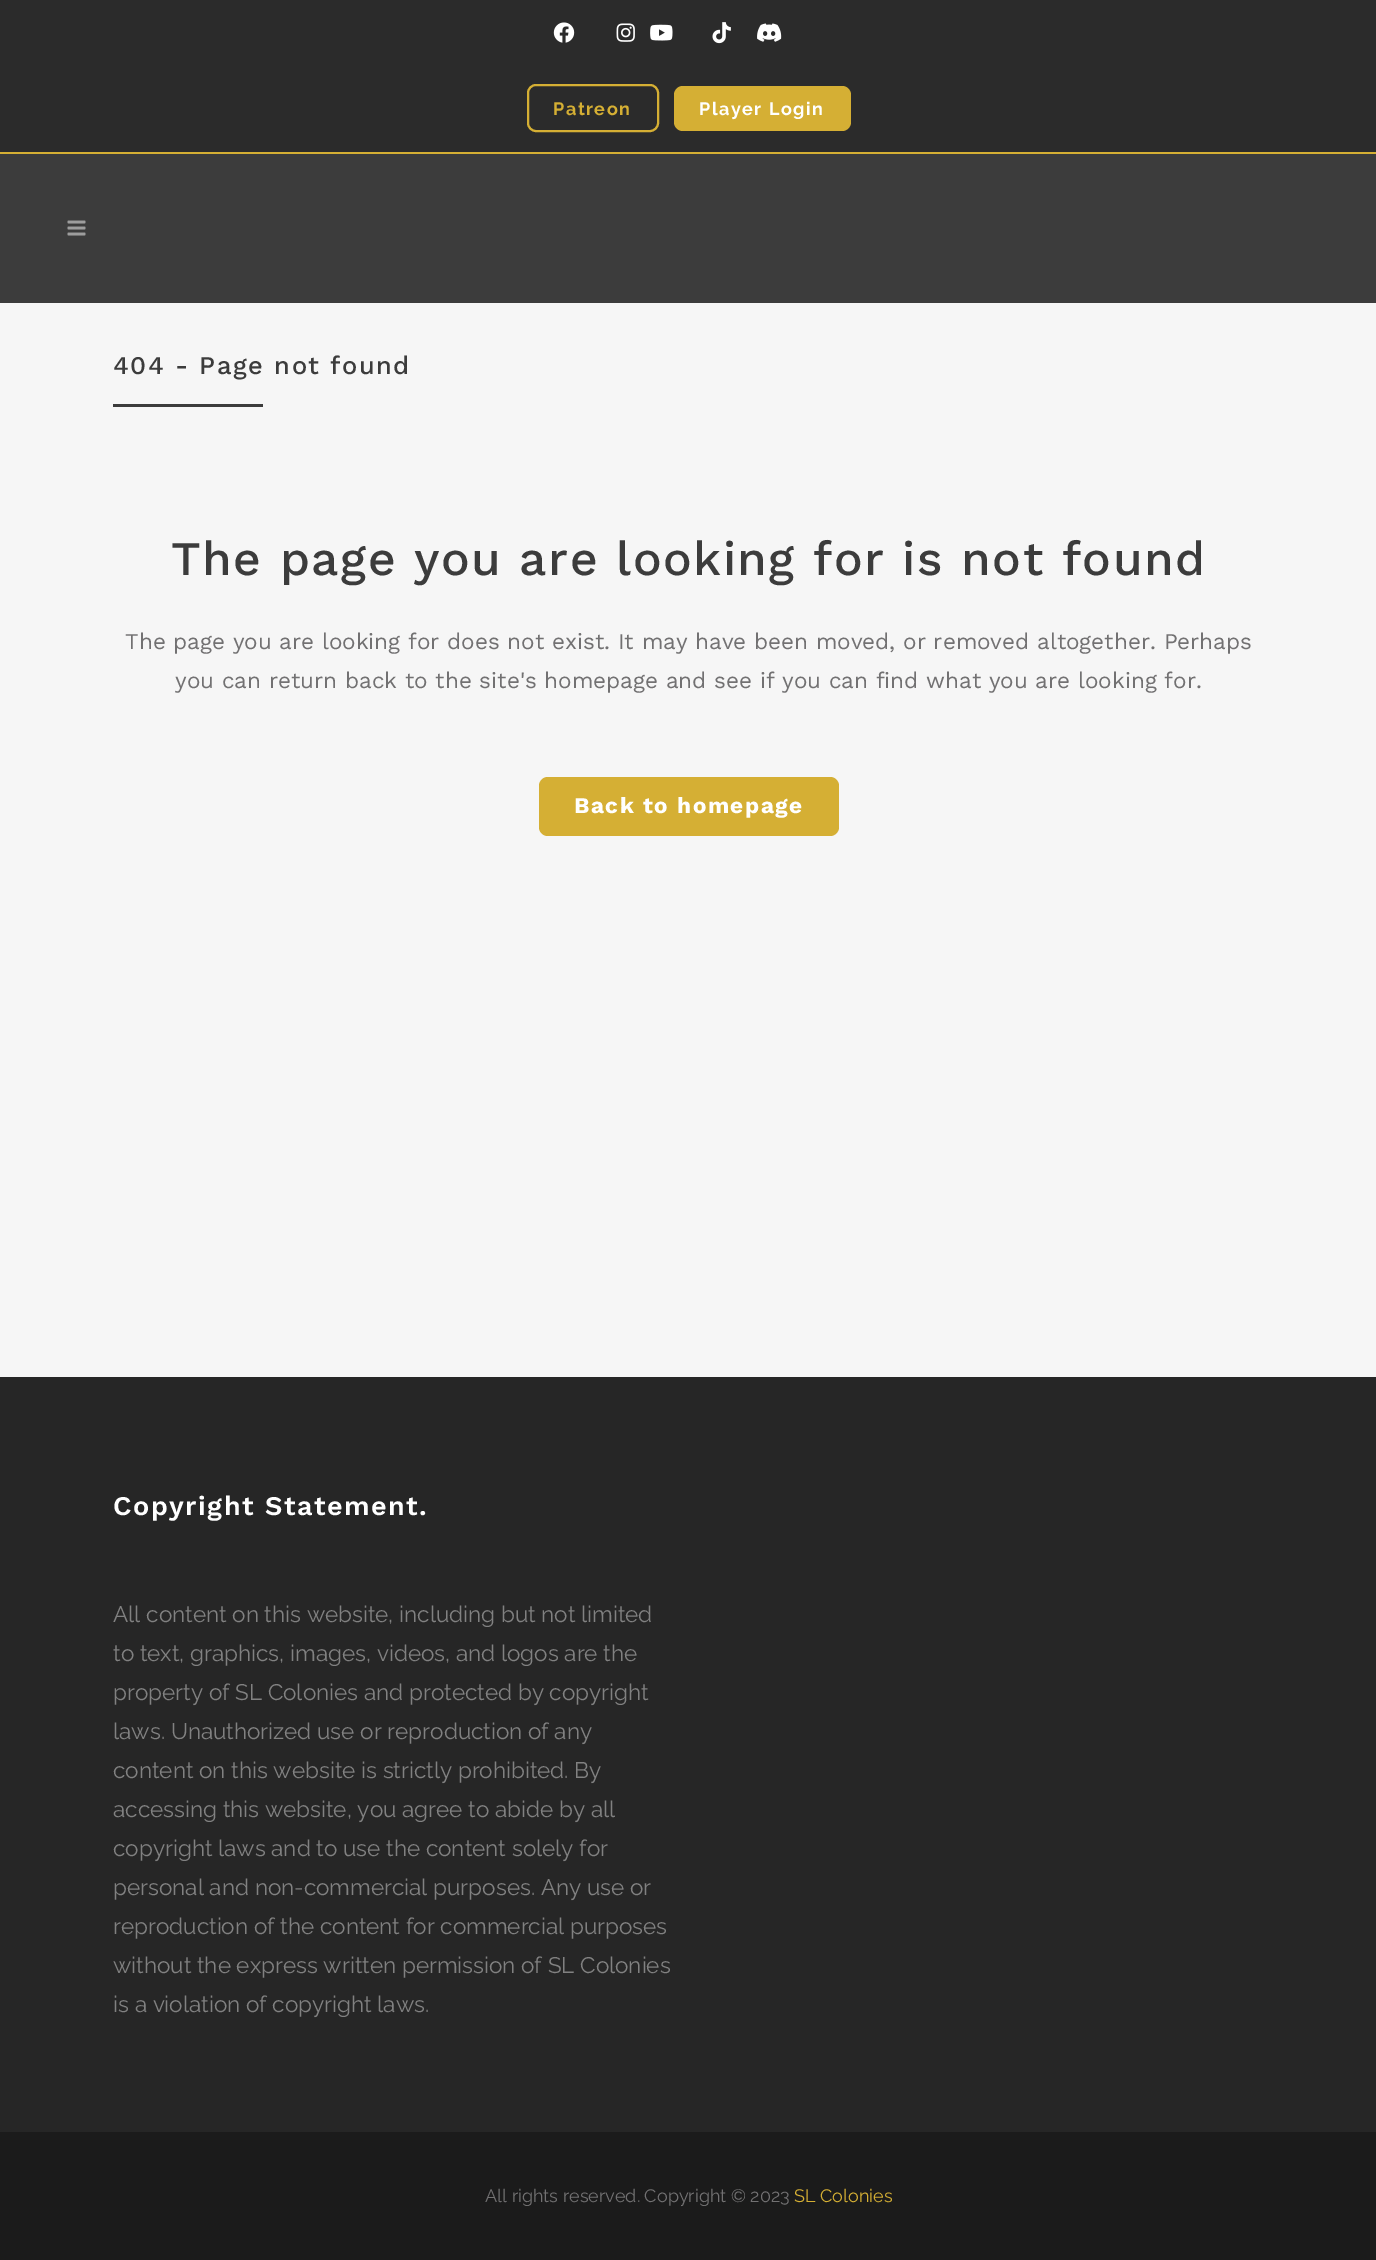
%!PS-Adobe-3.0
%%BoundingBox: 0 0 1376 2260
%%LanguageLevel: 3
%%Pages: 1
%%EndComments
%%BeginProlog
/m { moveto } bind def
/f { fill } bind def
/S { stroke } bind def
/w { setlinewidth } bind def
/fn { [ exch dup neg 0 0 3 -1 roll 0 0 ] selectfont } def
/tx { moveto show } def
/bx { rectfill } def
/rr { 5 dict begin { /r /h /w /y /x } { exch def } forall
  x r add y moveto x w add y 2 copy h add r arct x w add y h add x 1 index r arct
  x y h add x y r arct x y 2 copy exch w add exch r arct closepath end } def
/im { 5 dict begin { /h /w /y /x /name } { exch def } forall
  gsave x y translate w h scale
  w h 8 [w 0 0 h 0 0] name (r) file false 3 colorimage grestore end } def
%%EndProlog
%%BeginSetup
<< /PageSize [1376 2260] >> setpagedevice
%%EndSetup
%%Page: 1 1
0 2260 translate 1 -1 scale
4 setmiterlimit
0.965 setgray
0 0 1376 2260 bx
0.169 setgray
0 0 1376 152 bx
0.835 0.686 0.204 setrgbcolor
0 152 1376 2 bx
(image0.raw) 553 22 22 21 im
(image1.raw) 616 23 19 19 im
(image2.raw) 650 24 23 17 im
(image3.raw) 712 22 19 22 im
(image4.raw) 757 23 25 19 im
2 w
528 85 130 46 8 rr S
/Raleway-Bold 18 fn
553 115 m 1.5 0 (Patreon) ashow
674 86 177 45 9 rr f
1 setgray
699 115 m 1.5 0 (Player Login) ashow
0.235 setgray
0 154 1376 149 bx
(image5.raw) 67 220 19 16 im
/WorkSans-Medium 25.5 fn
113 374 m 1.5 0 (404 - Page not found) ashow
113 404 150 3 bx
/WorkSans-Medium 48 fn
171 575 m 1.5 0 (The page you are looking for is not found) ashow
/WorkSans-Regular 22.5 fn
0.447 0.443 0.447 setrgbcolor
(The page you are looking for does not exist. It may have been moved, or removed altogether. Perhaps) 125 649 tx
(you can return back to the site's homepage and see if you can find what you are looking for.) 175 688 tx
0.835 0.686 0.204 setrgbcolor
539 777 300 59 9 rr f
/WorkSans-Bold 22.5 fn
1 setgray
574 813 m 1.5 0 (Back to homepage) ashow
0.149 setgray
0 1377 1376 755 bx
/WorkSans-SemiBold 27 fn
1 setgray
113 1515 m 1.5 0 (Copyright Statement.) ashow
/Raleway-Regular 22.5 fn
0.506 setgray
(All content on this website, including but not limited) 113 1622 tx
(to text, graphics, images, videos, and logos are the) 113 1661 tx
(property of SL Colonies and protected by copyright) 113 1700 tx
(laws. Unauthorized use or reproduction of any) 113 1739 tx
(content on this website is strictly prohibited. By) 113 1778 tx
(accessing this website, you agree to abide by all) 113 1817 tx
(copyright laws and to use the content solely for) 113 1856 tx
(personal and non-commercial purposes. Any use or) 113 1895 tx
(reproduction of the content for commercial purposes) 113 1934 tx
(without the express written permission of SL Colonies) 113 1973 tx
(is a violation of copyright laws.) 113 2012 tx
0.106 setgray
0 2132 1376 128 bx
/Raleway-Regular 18 fn
0.447 0.443 0.447 setrgbcolor
(All rights reserved. Copyright © 2023) 485 2202 tx
0.835 0.686 0.204 setrgbcolor
(SL Colonies) 794 2202 tx
showpage
%%EOF
